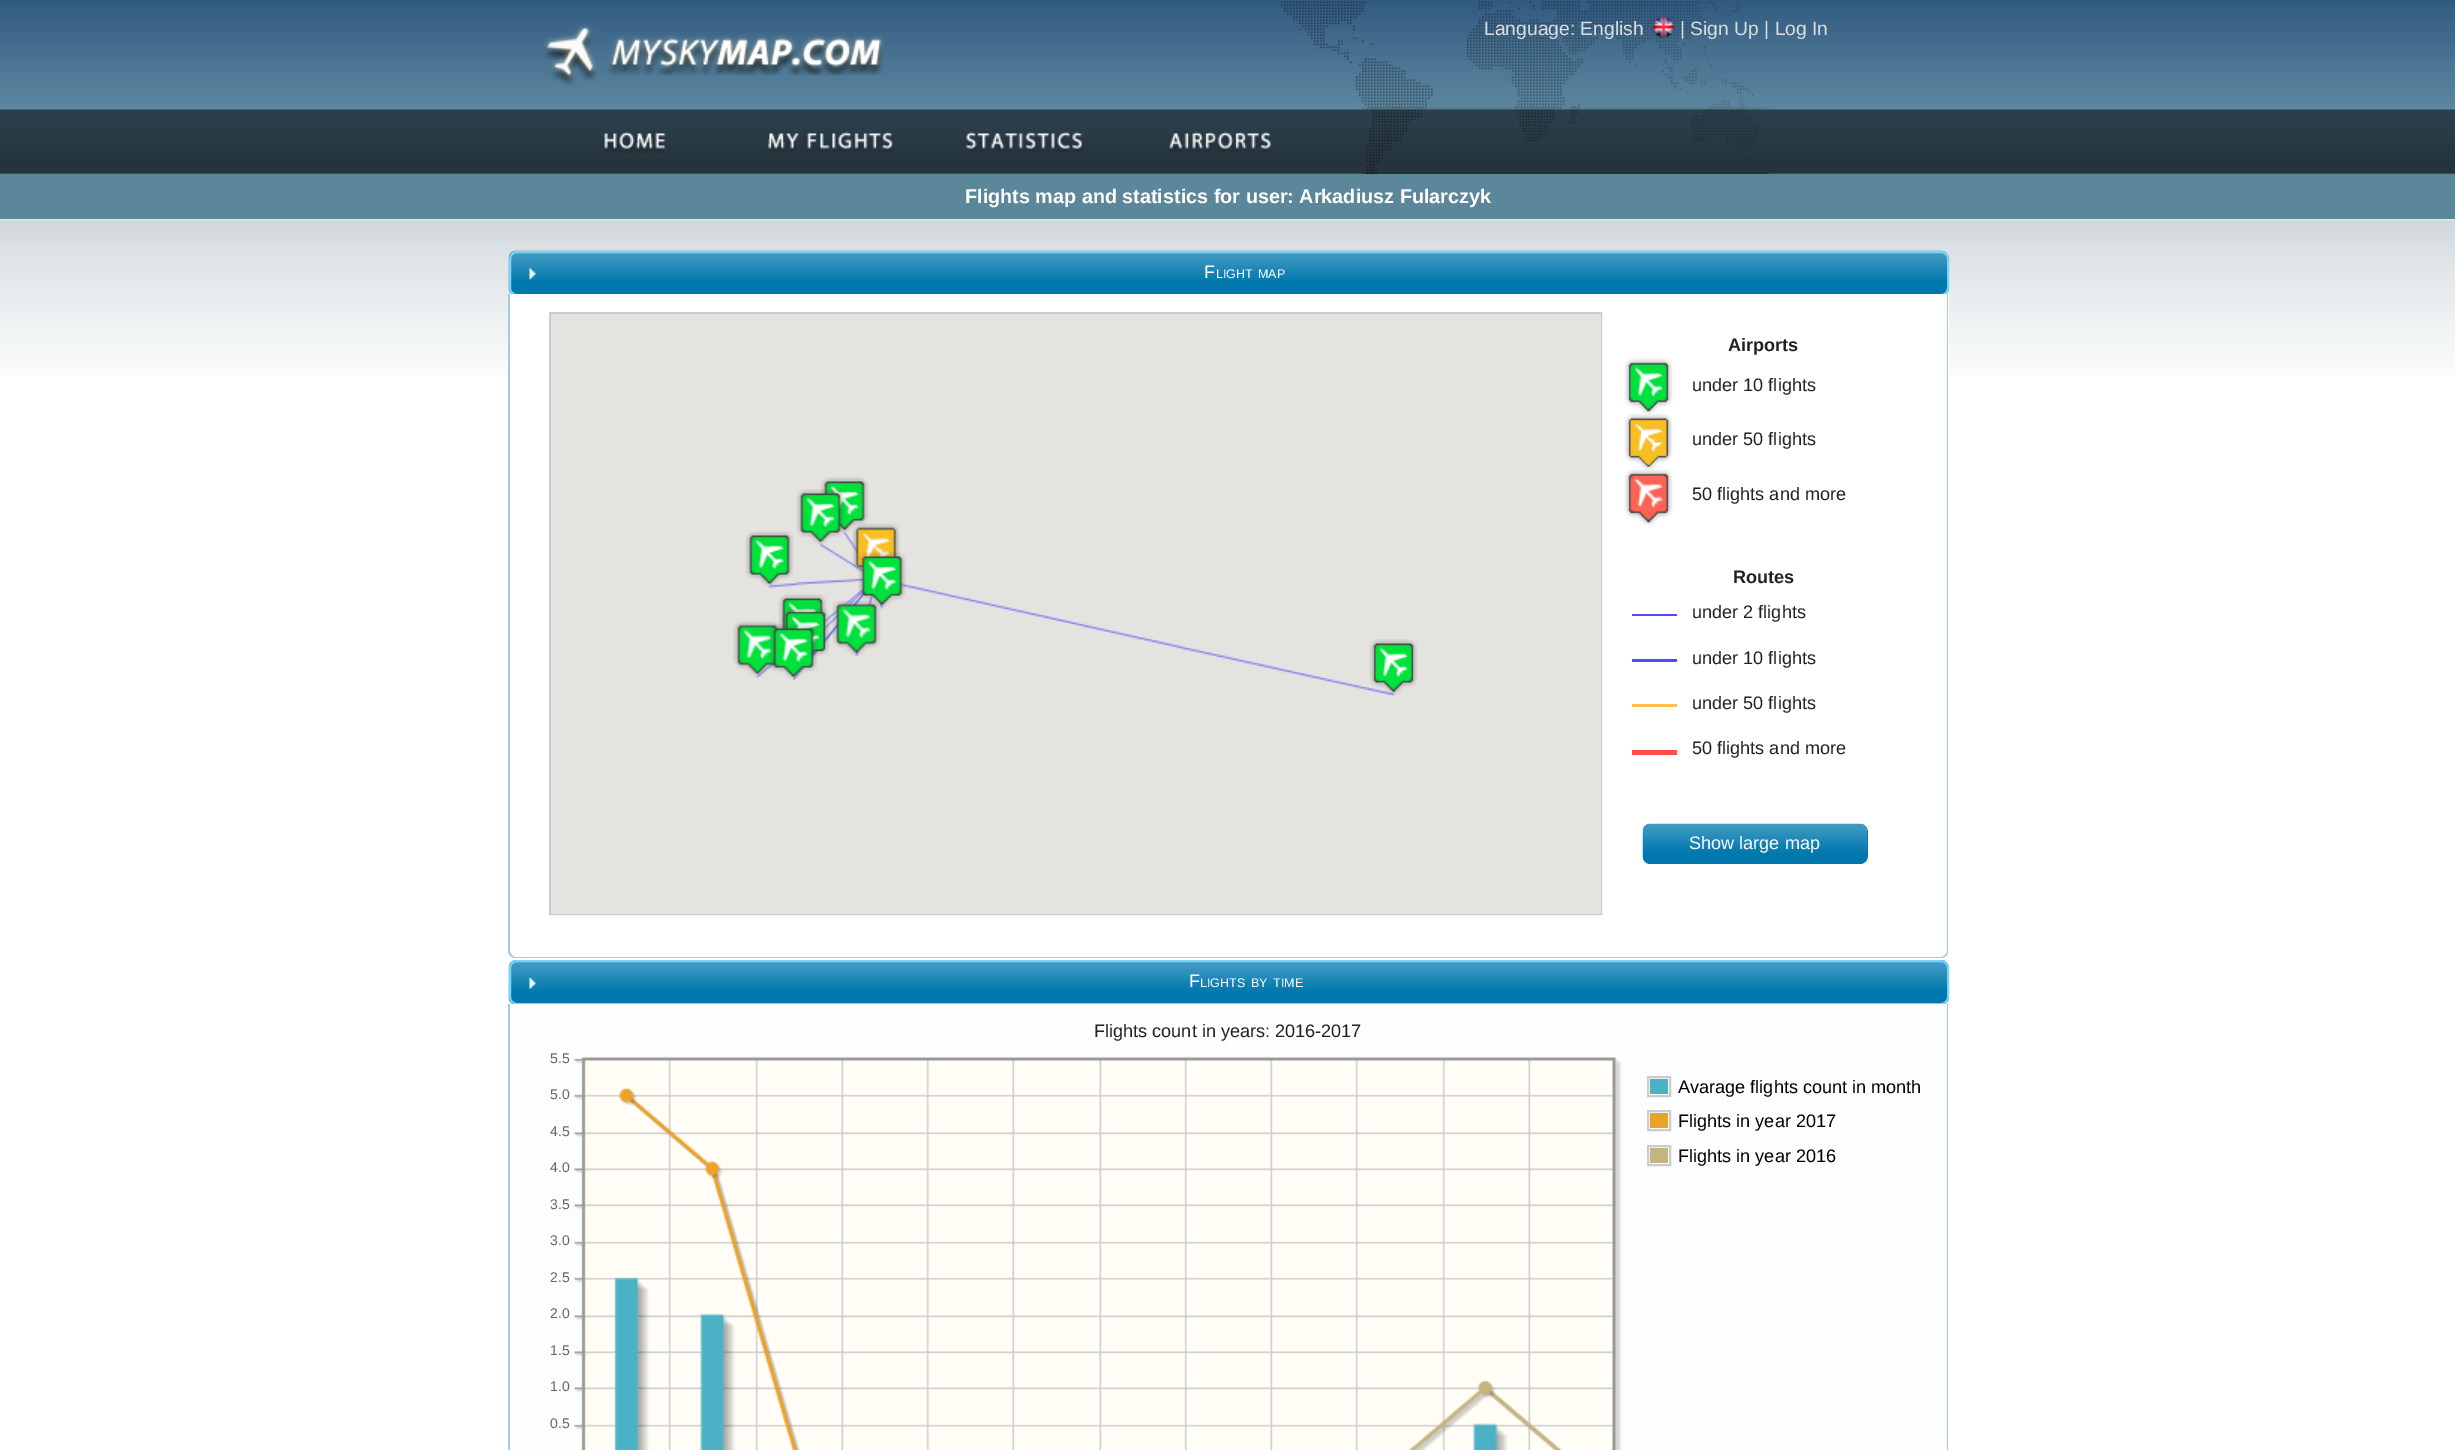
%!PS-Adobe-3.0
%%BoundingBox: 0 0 2455 1450
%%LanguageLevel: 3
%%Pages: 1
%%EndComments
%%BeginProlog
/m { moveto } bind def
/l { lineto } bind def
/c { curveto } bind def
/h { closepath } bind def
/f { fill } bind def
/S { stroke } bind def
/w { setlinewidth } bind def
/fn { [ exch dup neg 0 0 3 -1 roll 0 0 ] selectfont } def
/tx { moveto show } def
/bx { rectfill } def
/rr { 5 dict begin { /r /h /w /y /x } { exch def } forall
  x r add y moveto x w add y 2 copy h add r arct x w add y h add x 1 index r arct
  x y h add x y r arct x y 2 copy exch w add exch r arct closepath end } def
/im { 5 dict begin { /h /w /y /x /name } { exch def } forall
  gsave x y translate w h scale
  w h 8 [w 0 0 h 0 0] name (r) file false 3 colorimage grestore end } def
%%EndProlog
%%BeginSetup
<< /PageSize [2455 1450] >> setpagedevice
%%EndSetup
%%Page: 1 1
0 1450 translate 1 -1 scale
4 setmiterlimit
1 setgray
0 0 2455 1450 bx
(image0.raw) 0 0 2455 174 im
(image1.raw) 544 24 341 62 im
(image2.raw) 1280 1 474 105 im
/LiberationSans-Regular 19.25 fn
0.867 setgray
(Language: English) 1484 35 tx
(image3.raw) 1652 16 23 22 im
(| Sign Up | Log In) 1680 35 tx
(image4.raw) 602 131 63 23 im
(image5.raw) 767 131 126 23 im
(image6.raw) 965 131 118 22 im
(image7.raw) 1168 131 103 23 im
(image8.raw) 1362 106 407 68 im
0.361 0.525 0.604 setrgbcolor
0 174 2455 45 bx
/LiberationSans-Bold 19.8 fn
1 setgray
(Flights map and statistics for user: Arkadiusz Fularczyk) 965 203 tx
(image9.raw) 0 219 2455 157 im
(image10.raw) 508 250 1441 44 im
0.467 0.835 0.969 setrgbcolor
2 w
510 252 1438 43 7 rr S
(image11.raw) 529 268 7 12 im
/LiberationSans-Regular 18.1 fn
1 setgray
(F) 1204 278 tx
/LiberationSans-Regular 12.5 fn
(LIGHT) 1216 278 tx
(MAP) 1258 278 tx
509 294 m 1949 294 l 1949 951 l 1949 955.5 1945.5 959 1941 959 c 517 959 l 512.5 959 509 955.5 509 951 c h f
0.651 0.788 0.886 setrgbcolor
508 294 m 1948 294 l 1948 951 l 1948 955 1945 958 1941 958 c 516 958 l 512 958 508 955 508 951 c h 510 294 m 1947 294 l 1947 951 l 1947 954 1944 957 1941 957 c 516 957 l 513 957 510 954 510 951 c h eofill
0.8 setgray
550 313 1051 601 rectstroke
0.898 0.89 0.875 setrgbcolor
551 314 1050 600 bx
(image25.raw) 1180 646 215 51 im
(image24.raw) 796 531 385 146 im
(image12.raw) 820 477 49 55 im
(image23.raw) 756 583 41 98 im
(image13.raw) 745 531 49 55 im
(image14.raw) 796 489 49 55 im
(image15.raw) 852 523 48 49 im
(image16.raw) 858 552 48 55 im
(image17.raw) 778 594 49 45 im
(image18.raw) 832 600 49 56 im
(image19.raw) 733 621 48 56 im
(image20.raw) 781 607 49 53 im
(image21.raw) 769 624 49 55 im
(image22.raw) 1369 639 49 56 im
/LiberationSans-Bold 18.1 fn
0.133 setgray
(Airports) 1728 351 tx
(image26.raw) 1624 358 49 56 im
/LiberationSans-Regular 18.1 fn
(under 10 flights) 1692 391 tx
(image27.raw) 1624 414 49 56 im
(under 50 flights) 1692 445 tx
(image28.raw) 1624 469 49 56 im
(50 flights and more) 1692 500 tx
/LiberationSans-Bold 18.1 fn
(Routes) 1733 583 tx
0.302 0.302 1 setrgbcolor
1632 614 45 2 bx
/LiberationSans-Regular 18.1 fn
0.133 setgray
(under 2 flights) 1692 618 tx
0.302 0.302 1 setrgbcolor
1632 659 45 3 bx
0.133 setgray
(under 10 flights) 1692 664 tx
1 0.753 0.302 setrgbcolor
1632 704 45 3 bx
0.133 setgray
(under 50 flights) 1692 709 tx
1 0.302 0.302 setrgbcolor
1632 750 45 5 bx
0.133 setgray
(50 flights and more) 1692 754 tx
0 0.471 0.682 setrgbcolor
1643 824 225 40 8 rr f
(image29.raw) 1642 823 226 41 im
1 setgray
(Show large map) 1689 849 tx
(image30.raw) 508 960 1441 44 im
0.467 0.835 0.969 setrgbcolor
510 961 1438 43 7 rr S
(image31.raw) 529 977 7 12 im
1 setgray
(F) 1189 987 tx
/LiberationSans-Regular 12.5 fn
(LIGHTS) 1200 987 tx
(BY) 1251 987 tx
(TIME) 1273 987 tx
0.988 0.992 0.992 setrgbcolor
510 1004 1439 446 bx
0.651 0.788 0.886 setrgbcolor
508 1004 m 1948 1004 l 1948 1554 l 1948 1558 1945 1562 1941 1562 c 516 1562 l 512 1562 508 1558 508 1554 c h 510 1004 m 1947 1004 l 1947 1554 l 1947 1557 1944 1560 1941 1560 c 516 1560 l 513 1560 510 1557 510 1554 c h eofill
/LiberationSans-Regular 18.1 fn
0.133 setgray
(Flights count in years: 2016-2017) 1094 1037 tx
/LiberationSans-Regular 14 fn
0.4 setgray
(5.5) 550 1063 tx
(5.0) 550 1099 tx
(4.5) 550 1136 tx
(4.0) 550 1172 tx
(3.5) 550 1209 tx
(3.0) 550 1245 tx
(2.5) 550 1282 tx
(2.0) 550 1318 tx
(1.5) 550 1355 tx
(1.0) 550 1391 tx
(0.5) 550 1428 tx
(image32.raw) 574 1057 1048 393 im
0.8 setgray
1648 1077 22 19 rectstroke
0.294 0.698 0.773 setrgbcolor
1650 1079 18 15 bx
/LiberationSans-Regular 18.1 fn
0 setgray
(Avarage flights count in month) 1678 1093 tx
0.8 setgray
1648 1111 22 19 rectstroke
0.918 0.635 0.157 setrgbcolor
1650 1113 18 15 bx
0 setgray
(Flights in year 2017) 1678 1127 tx
0.8 setgray
1648 1146 22 19 rectstroke
0.773 0.706 0.498 setrgbcolor
1650 1148 18 15 bx
0 setgray
(Flights in year 2016) 1678 1162 tx
(image34.raw) 614 1277 894 173 im
(image33.raw) 619 1087 181 363 im
(image35.raw) 1408 1380 154 70 im
showpage
%%EOF
